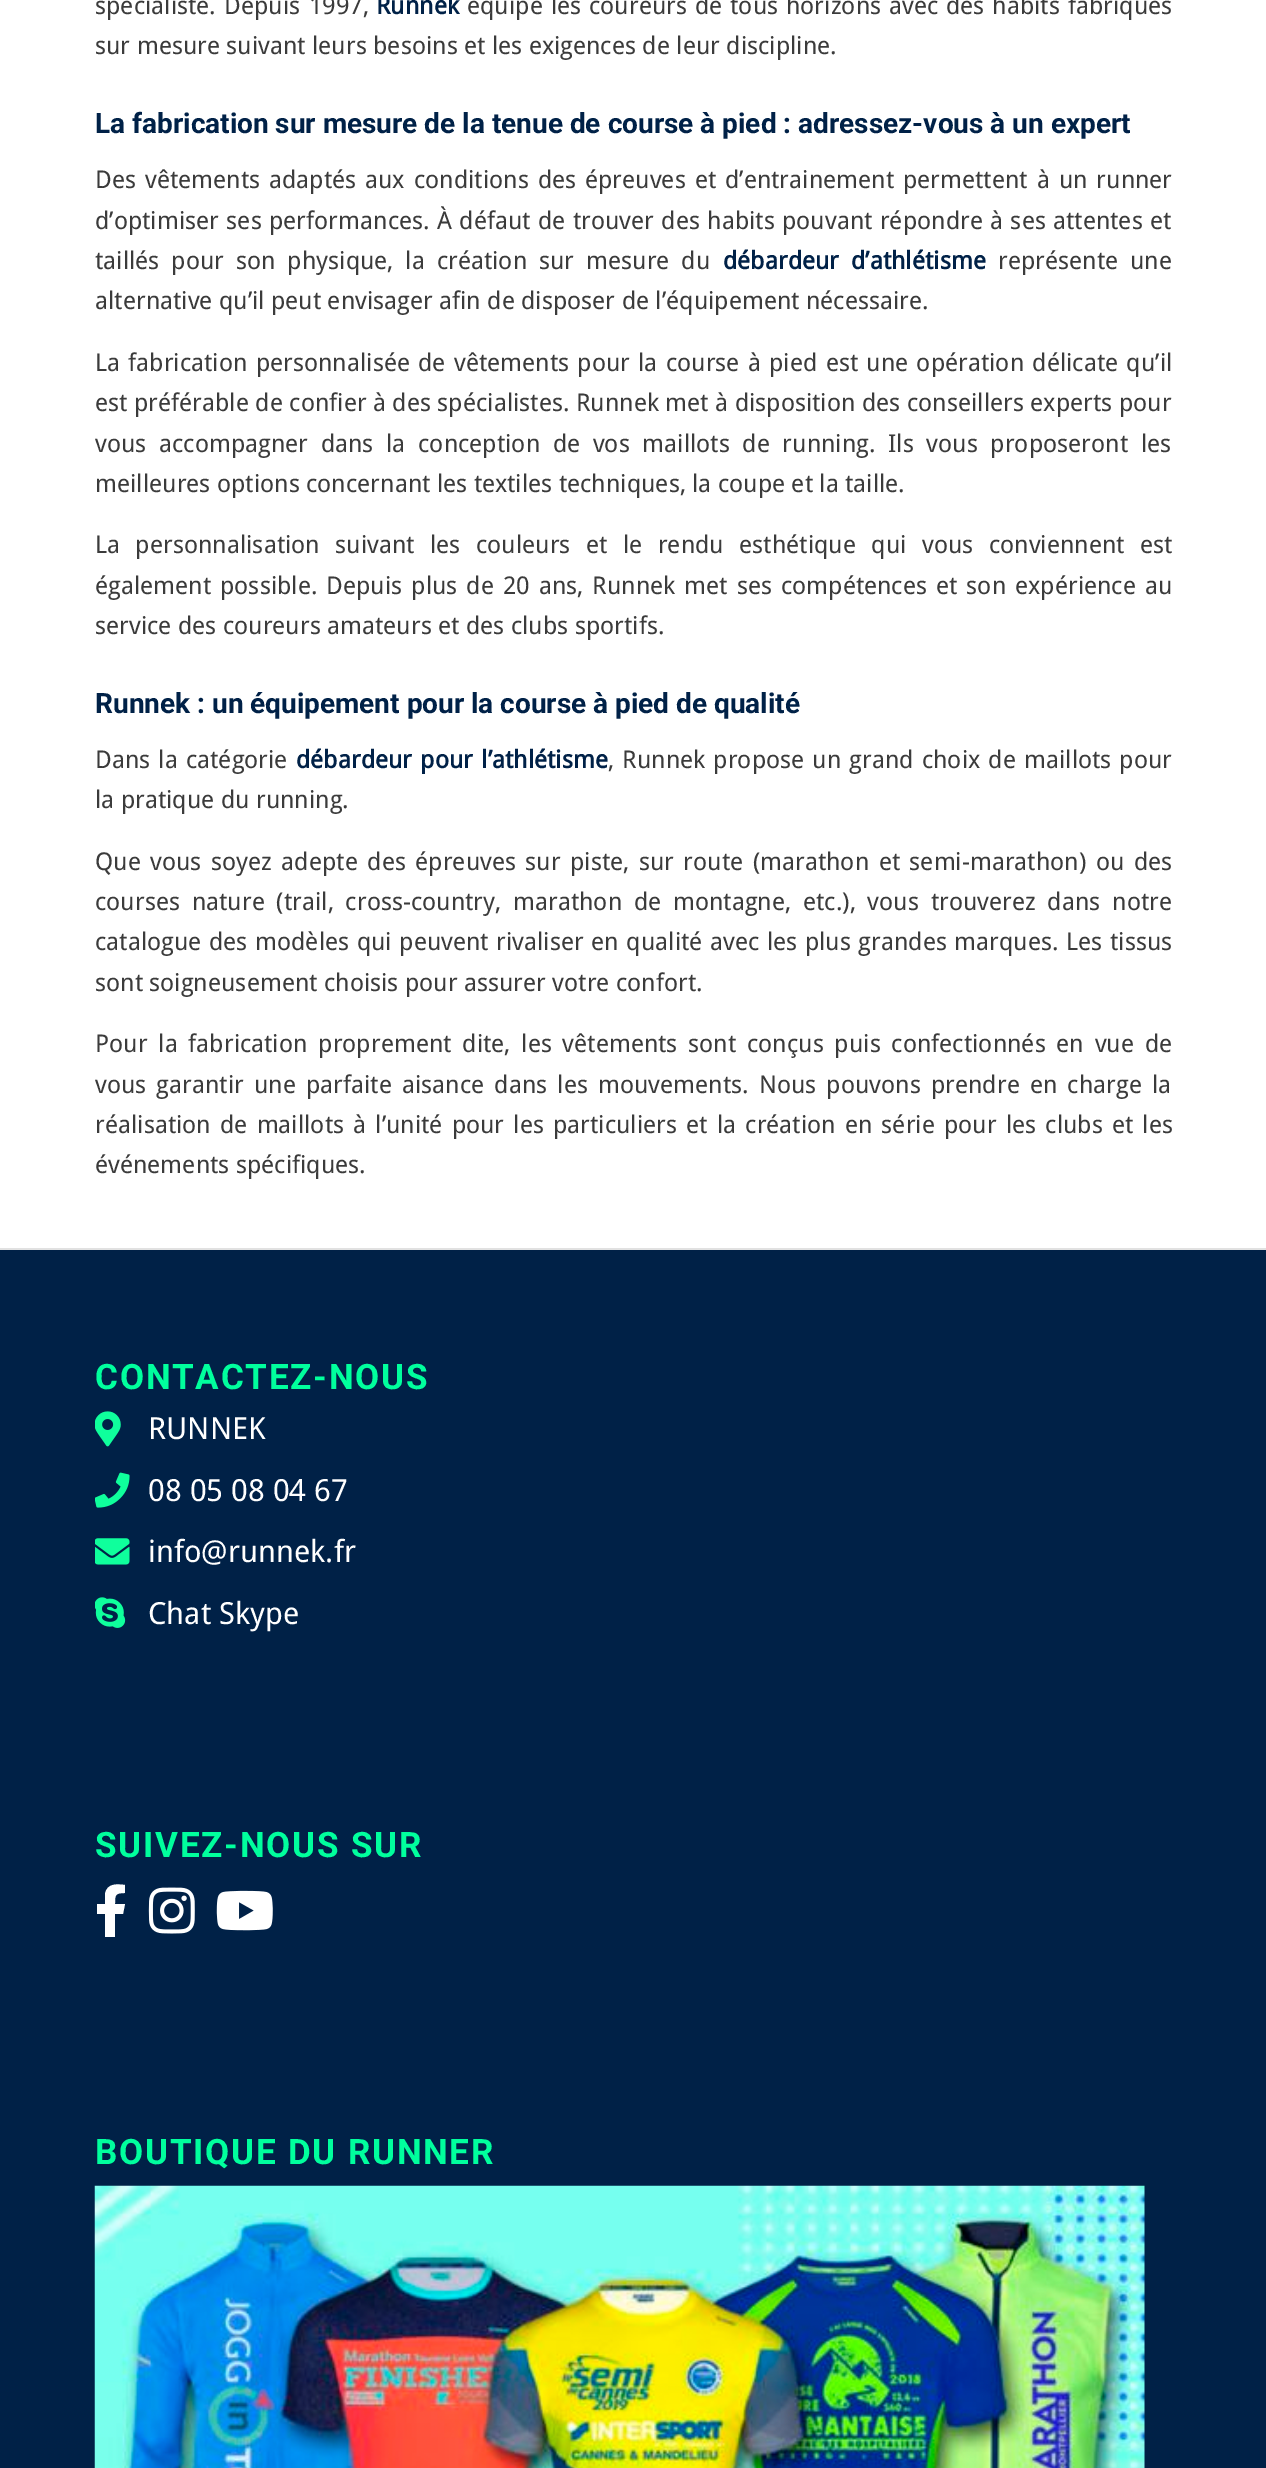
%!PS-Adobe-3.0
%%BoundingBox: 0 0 1266 2468
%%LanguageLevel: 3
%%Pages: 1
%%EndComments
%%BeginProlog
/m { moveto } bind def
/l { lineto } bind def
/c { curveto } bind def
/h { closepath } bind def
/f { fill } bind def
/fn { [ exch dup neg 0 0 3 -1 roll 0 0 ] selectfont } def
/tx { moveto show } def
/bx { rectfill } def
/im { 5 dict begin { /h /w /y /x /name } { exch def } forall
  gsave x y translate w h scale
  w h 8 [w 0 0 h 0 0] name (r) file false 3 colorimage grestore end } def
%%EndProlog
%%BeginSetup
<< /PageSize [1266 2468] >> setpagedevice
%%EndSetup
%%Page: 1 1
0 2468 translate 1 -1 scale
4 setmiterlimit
0 0.129 0.278 setrgbcolor
0 0 1266 2468 bx
1 setgray
0 0 1266 1248 bx
/DroidSans-Regular 24.5 fn
0.231 setgray
95 14 m 2 0 32 (spécialiste. Depuis 1997,) widthshow
/DroidSans-Bold 24.5 fn
0 0.129 0.278 setrgbcolor
(Runnek) 376 14 tx
/DroidSans-Regular 24.5 fn
0.231 setgray
467 14 m 1.5 0 32 (équipe les coureurs de tous horizons avec des habits fabriqués) widthshow
(sur mesure suivant leurs besoins et les exigences de leur discipline.) 95 54 tx
/Roboto-Bold 28 fn
0 0.129 0.278 setrgbcolor
(La fabrication sur mesure de la tenue de course à pied : adressez-vous à un expert) 95 133 tx
/DroidSans-Regular 24.5 fn
0.231 setgray
95 188 m 2.6 0 32 (Des vêtements adaptés aux conditions des épreuves et d’entrainement permettent à un runner) widthshow
95 229 m 1 0 32 (d’optimiser ses performances. À défaut de trouver des habits pouvant répondre à ses attentes et) widthshow
95 269 m 5.5 0 32 (taillés pour son physique, la création sur mesure du) widthshow
/DroidSans-Bold 24.5 fn
0 0.129 0.278 setrgbcolor
723 269 m 5.5 0 32 (débardeur d’athlétisme) widthshow
/DroidSans-Regular 24.5 fn
0.231 setgray
998 269 m 5.5 0 32 (représente une) widthshow
(alternative qu’il peut envisager afin de disposer de l’équipement nécessaire.) 95 309 tx
95 371 m 1.9 0 32 (La fabrication personnalisée de vêtements pour la course à pied est une opération délicate qu’il) widthshow
95 411 m 0.1 0 32 (est préférable de confier à des spécialistes. Runnek met à disposition des conseillers experts pour) widthshow
95 452 m 6.25 0 32 (vous accompagner dans la conception de vos maillots de running. Ils vous proposeront les) widthshow
(meilleures options concernant les textiles techniques, la coupe et la taille.) 95 492 tx
95 553 m 9.1 0 32 (La personnalisation suivant les couleurs et le rendu esthétique qui vous conviennent est) widthshow
95 594 m 2.6 0 32 (également possible. Depuis plus de 20 ans, Runnek met ses compétences et son expérience au) widthshow
(service des coureurs amateurs et des clubs sportifs.) 95 634 tx
/Roboto-Bold 28 fn
0 0.129 0.278 setrgbcolor
(Runnek : un équipement pour la course à pied de qualité) 95 713 tx
/DroidSans-Regular 24.5 fn
0.231 setgray
95 768 m 1.75 0 32 (Dans la catégorie) widthshow
/DroidSans-Bold 24.5 fn
0 0.129 0.278 setrgbcolor
296 768 m 1.75 0 32 (débardeur pour l’athlétisme) widthshow
/DroidSans-Regular 24.5 fn
0.231 setgray
608 768 m 1.75 0 32 (, Runnek propose un grand choix de maillots pour) widthshow
(la pratique du running.) 95 808 tx
95 870 m 3.1 0 32 (Que vous soyez adepte des épreuves sur piste, sur route \(marathon et semi-marathon\) ou des) widthshow
95 910 m 5.4 0 32 (courses nature \(trail, cross-country, marathon de montagne, etc.\), vous trouverez dans notre) widthshow
95 950 m 1.2 0 32 (catalogue des modèles qui peuvent rivaliser en qualité avec les plus grandes marques. Les tissus) widthshow
(sont soigneusement choisis pour assurer votre confort.) 95 991 tx
95 1052 m 4.4 0 32 (Pour la fabrication proprement dite, les vêtements sont conçus puis confectionnés en vue de) widthshow
95 1093 m 3.75 0 32 (vous garantir une parfaite aisance dans les mouvements. Nous pouvons prendre en charge la) widthshow
95 1133 m 2.75 0 32 (réalisation de maillots à l’unité pour les particuliers et la création en série pour les clubs et les) widthshow
(événements spécifiques.) 95 1173 tx
0.882 setgray
0 1248 1266 2 bx
/Roboto-Bold 35 fn
0 1 0.616 setrgbcolor
95 1389 m 1.75 0 (CONTACTEZ-NOUS) ashow
(image0.raw) 95 1411 26 36 im
/DroidSans-Regular 30.5 fn
1 setgray
(RUNNEK) 148 1439 tx
(image1.raw) 95 1472 35 36 im
(08 05 08 04 67) 148 1501 tx
(image2.raw) 95 1538 35 27 im
(info@runnek.fr) 148 1562 tx
(image3.raw) 95 1597 31 31 im
(Chat Skype) 148 1624 tx
/Roboto-Bold 35 fn
0 1 0.616 setrgbcolor
95 1857 m 1.75 0 (SUIVEZ-NOUS SUR) ashow
1 setgray
123 1914 m 115 1914 l 115 1937 l 105 1937 l 105 1914 l 97 1914 l 97 1904 l 105 1904 l 105 1894 l 107 1883 117 1884 125 1885 c 125 1893 l 115 1893 115 1895 115 1904 c 125 1904 l h f
(image4.raw) 148 1887 47 47 im
(image5.raw) 216 1890 57 41 im
0 1 0.616 setrgbcolor
95 2164 m 1.75 0 (BOUTIQUE DU RUNNER) ashow
(image6.raw) 94 2185 1051 283 im
showpage
%%EOF
